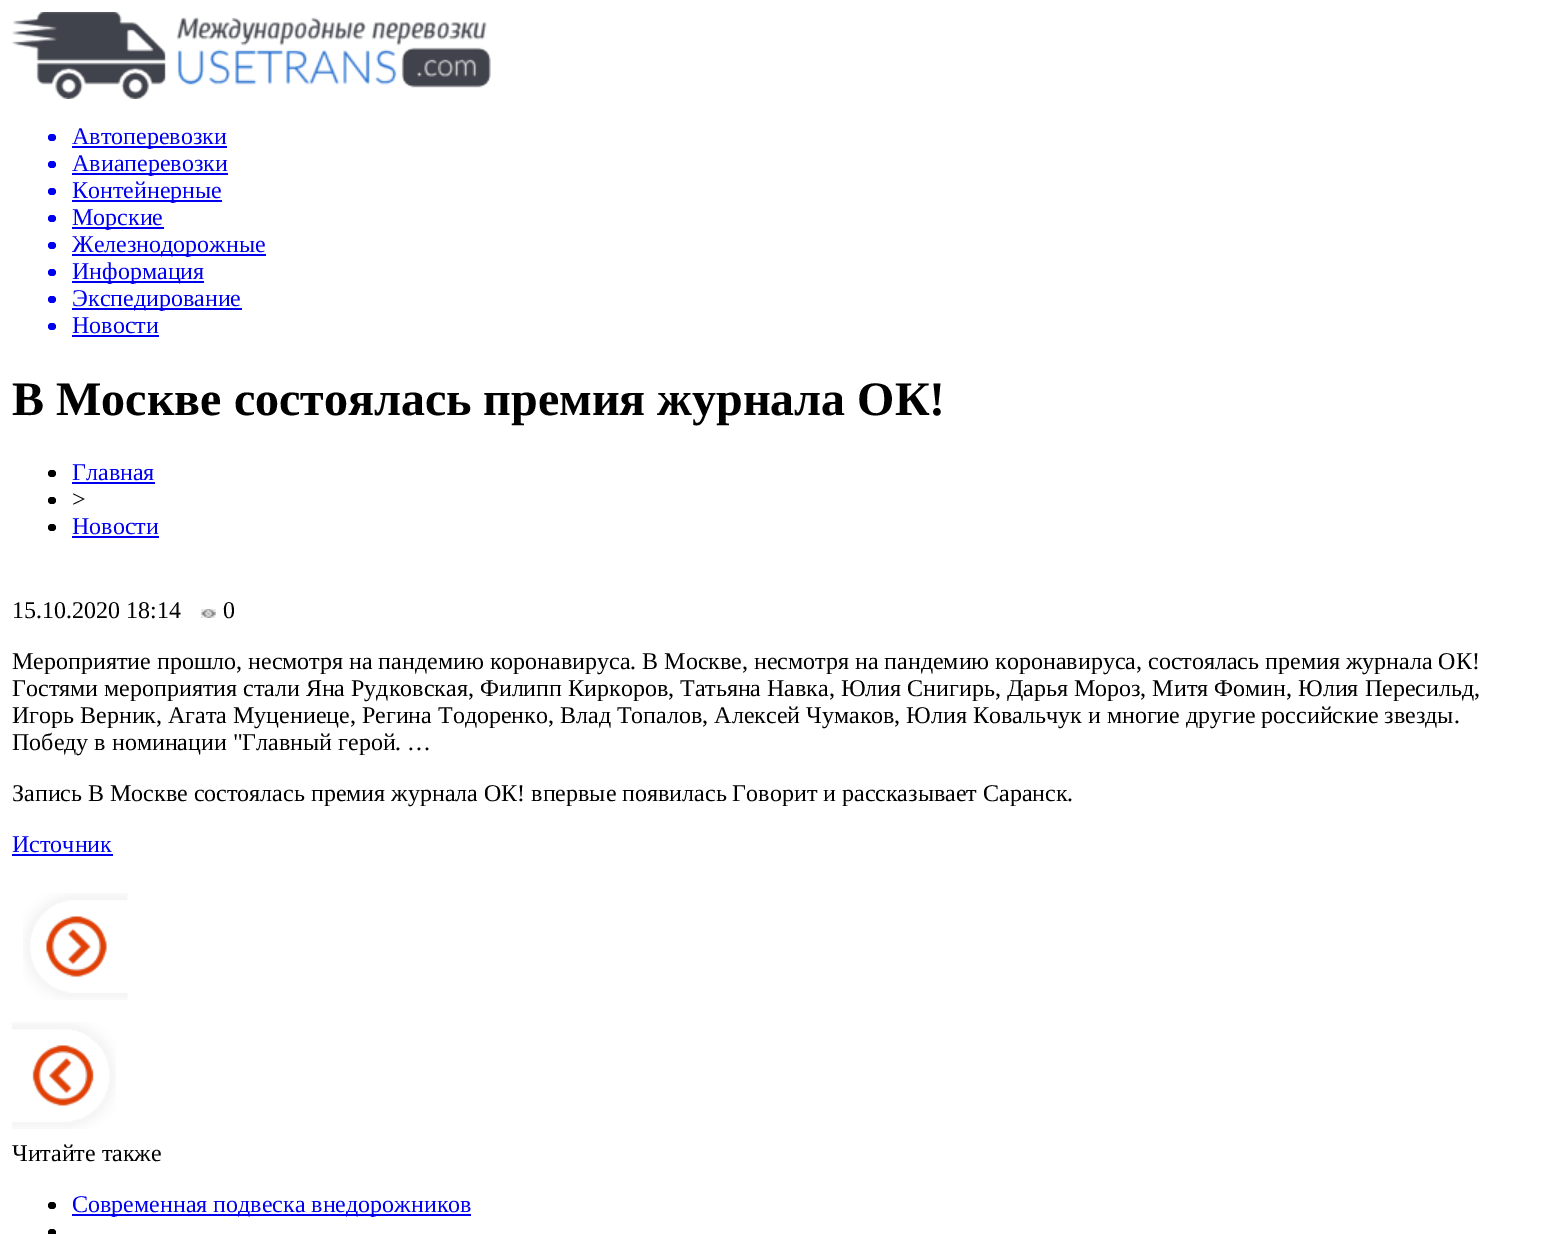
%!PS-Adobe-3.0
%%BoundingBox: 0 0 1541 1234
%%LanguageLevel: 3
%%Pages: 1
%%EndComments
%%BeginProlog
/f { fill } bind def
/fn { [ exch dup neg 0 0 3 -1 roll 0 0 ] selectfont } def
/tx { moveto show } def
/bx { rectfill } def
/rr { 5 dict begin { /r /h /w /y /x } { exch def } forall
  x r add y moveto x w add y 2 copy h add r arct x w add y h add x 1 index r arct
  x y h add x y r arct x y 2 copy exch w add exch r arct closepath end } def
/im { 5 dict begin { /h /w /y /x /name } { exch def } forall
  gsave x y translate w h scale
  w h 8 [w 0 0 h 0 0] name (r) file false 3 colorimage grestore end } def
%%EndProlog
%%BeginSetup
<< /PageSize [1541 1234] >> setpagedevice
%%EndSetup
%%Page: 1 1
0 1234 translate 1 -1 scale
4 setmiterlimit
1 setgray
0 0 1541 1234 bx
(image0.raw) 12 12 479 87 im
0 0 0.933 setrgbcolor
48 134 8 7 3.5 rr f
72 146 155 2 bx
/LiberationSerif-Regular 24 fn
(Автоперевозки) 72 144 tx
48 161 8 7 3.5 rr f
72 173 156 2 bx
(Авиаперевозки) 72 171 tx
48 188 8 7 3.5 rr f
72 200 150 2 bx
(Контейнерные) 72 198 tx
48 215 8 7 3.5 rr f
72 227 92 2 bx
(Морские) 72 225 tx
48 242 8 7 3.5 rr f
72 254 194 2 bx
(Железнодорожные) 72 252 tx
48 269 8 7 3.5 rr f
72 281 132 2 bx
(Информация) 72 279 tx
48 296 8 7 3.5 rr f
72 308 170 2 bx
(Экспедирование) 72 306 tx
48 323 8 7 3.5 rr f
(Новости) 72 333 tx
72 335 87 2 bx
/LiberationSerif-Bold 48 fn
0 setgray
(В Москве состоялась премия журнала ОК!) 12 415 tx
48 470 8 7 3.5 rr f
/LiberationSerif-Regular 24 fn
0 0 0.933 setrgbcolor
(Главная) 72 480 tx
72 482 83 2 bx
0 setgray
48 497 8 7 3.5 rr f
(>) 72 507 tx
48 524 8 7 3.5 rr f
0 0 0.933 setrgbcolor
(Новости) 72 534 tx
72 536 87 2 bx
0 setgray
(15.10.2020 18:14) 12 618 tx
(image1.raw) 201 609 15 9 im
(0) 223 618 tx
(Мероприятие прошло, несмотря на пандемию коронавируса. В Москве, несмотря на пандемию коронавируса, состоялась премия журнала ОК!) 12 669 tx
(Гостями мероприятия стали Яна Рудковская, Филипп Киркоров, Татьяна Навка, Юлия Снигирь, Дарья Мороз, Митя Фомин, Юлия Пересильд,) 12 696 tx
(Игорь Верник, Агата Муцениеце, Регина Тодоренко, Влад Топалов, Алексей Чумаков, Юлия Ковальчук и многие другие российские звезды.) 12 723 tx
(Победу в номинации "Главный герой. …) 12 750 tx
(Запись В Москве состоялась премия журнала ОК! впервые появилась Говорит и рассказывает Саранск.) 12 801 tx
0 0 0.933 setrgbcolor
(Источник) 12 852 tx
12 854 101 2 bx
(image2.raw) 23 893 105 107 im
(image3.raw) 12 1022 104 107 im
0 setgray
(Читайте также) 12 1161 tx
48 1202 8 7 3.5 rr f
0 0 0.933 setrgbcolor
72 1214 399 2 bx
(Современная подвеска внедорожников) 72 1212 tx
0 setgray
48 1229 8 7 3.5 rr f
showpage
%%EOF
